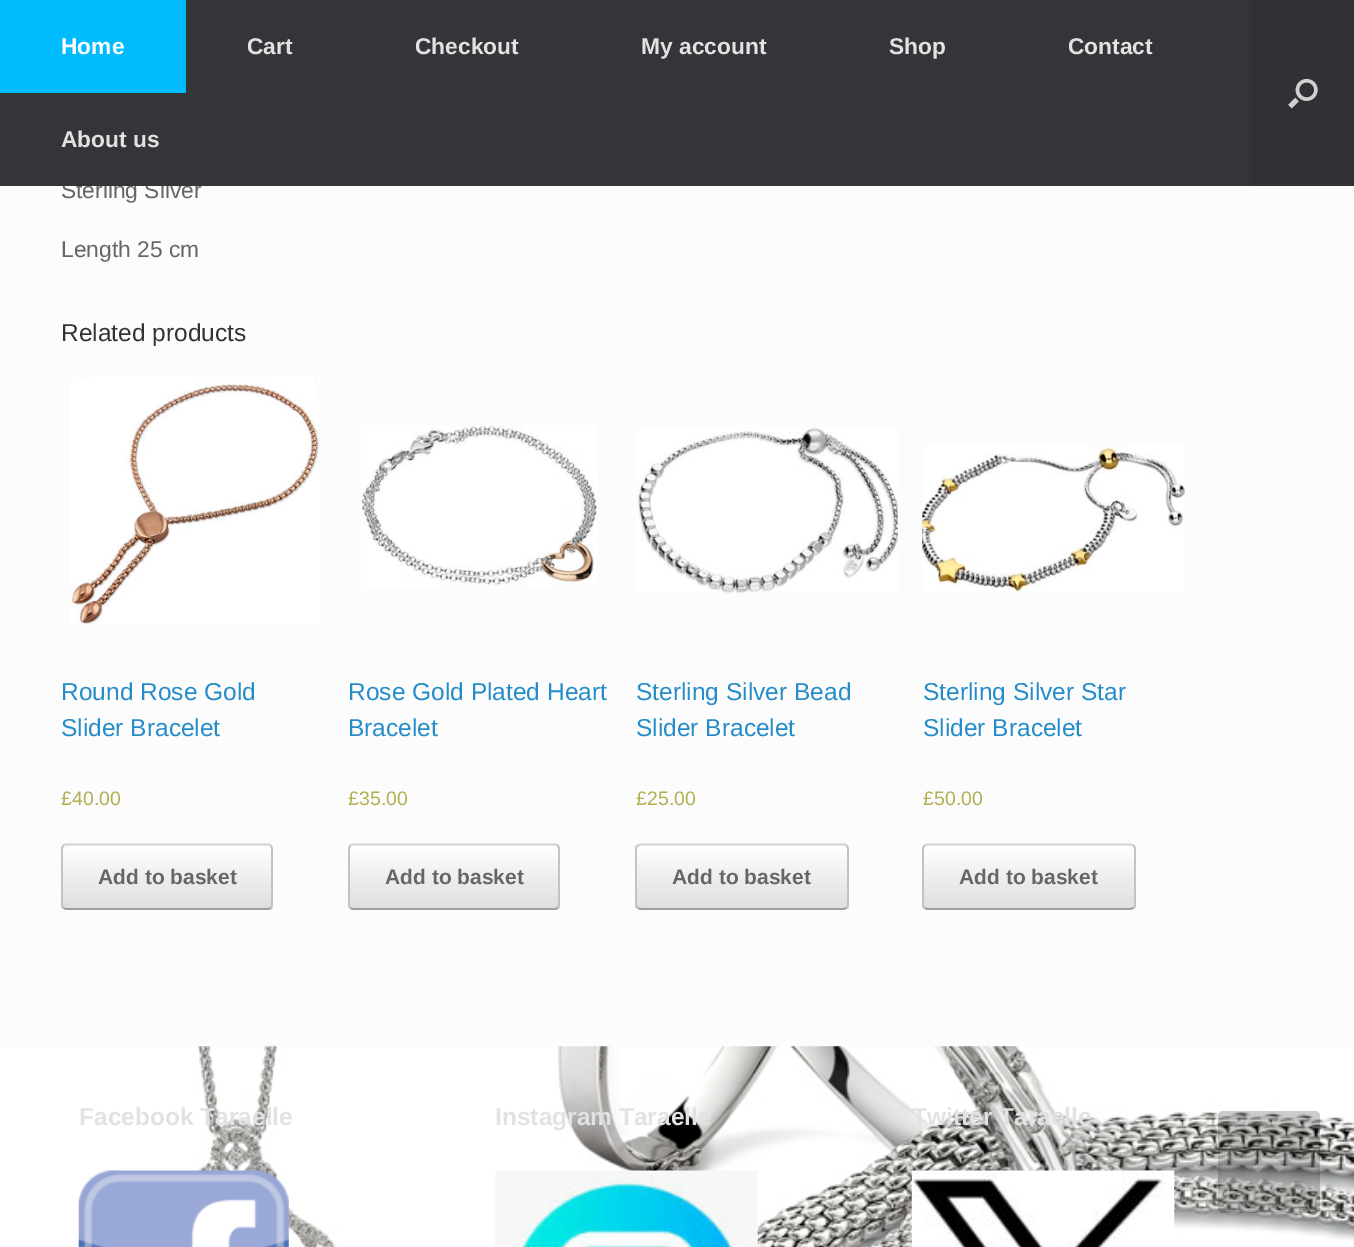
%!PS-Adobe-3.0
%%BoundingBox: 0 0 1354 1247
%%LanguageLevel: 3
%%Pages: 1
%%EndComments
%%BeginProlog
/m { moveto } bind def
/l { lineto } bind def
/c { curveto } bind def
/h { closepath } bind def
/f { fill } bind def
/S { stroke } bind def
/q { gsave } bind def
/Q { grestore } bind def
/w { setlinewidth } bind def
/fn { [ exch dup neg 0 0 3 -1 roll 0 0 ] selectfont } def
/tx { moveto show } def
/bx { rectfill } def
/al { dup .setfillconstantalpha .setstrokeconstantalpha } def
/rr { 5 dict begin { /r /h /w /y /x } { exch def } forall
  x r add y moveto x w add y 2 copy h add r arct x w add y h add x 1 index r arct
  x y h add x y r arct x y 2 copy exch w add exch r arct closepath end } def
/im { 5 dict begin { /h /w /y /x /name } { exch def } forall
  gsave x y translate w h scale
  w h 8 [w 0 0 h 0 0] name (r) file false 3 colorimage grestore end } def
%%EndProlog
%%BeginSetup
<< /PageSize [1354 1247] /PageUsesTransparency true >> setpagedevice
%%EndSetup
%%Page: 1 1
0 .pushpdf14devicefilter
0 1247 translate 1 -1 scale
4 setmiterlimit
0.988 setgray
0 0 1354 1247 bx
/LiberationSans-Regular 22.75 fn
0.4 setgray
(Sterling Silver) 61 198 tx
0.204 0.208 0.22 setrgbcolor
0 0 1251 186 bx
0 0.737 1 setrgbcolor
0 0 186 93 bx
/LiberationSans-Bold 22.75 fn
1 setgray
(Home) 61 54 tx
0.886 setgray
(Cart) 247 54 tx
(Checkout) 415 54 tx
(My account) 641 54 tx
(Shop) 889 54 tx
(Contact) 1068 54 tx
(About us) 61 147 tx
0.188 0.192 0.204 setrgbcolor
1251 0 103 186 bx
(image0.raw) 1288 78 30 31 im
/LiberationSans-Regular 22.75 fn
0.4 setgray
(Length 25 cm) 61 257 tx
/LiberationSans-Regular 24.5 fn
0.2 setgray
(Related products) 61 341 tx
(image1.raw) 70 376 250 249 im
0.141 0.549 0.784 setrgbcolor
(Round Rose Gold) 61 700 tx
(Slider Bracelet) 61 736 tx
/LiberationSans-Regular 19.5 fn
0.702 0.686 0.329 setrgbcolor
(£40.00) 61 805 tx
q
61 844 212 66 5 rr clip newpath
q 61 845 m 273 845 l 273 908 l 61 908 l h clip newpath
<< /ShadingType 2 /ColorSpace /DeviceRGB /Coords [63 908 63 845] /Extend [true true] /Function << /FunctionType 2 /Domain [0 1] /C0 [0.875 0.875 0.875] /C1 [1 1 1] /N 1 >> >> shfill Q
q 61 908 m 273 908 l 273 910 l 61 910 l h clip newpath
<< /ShadingType 2 /ColorSpace /DeviceRGB /Coords [63 971 63 908] /Extend [true true] /Function << /FunctionType 2 /Domain [0 1] /C0 [0.875 0.875 0.875] /C1 [1 1 1] /N 1 >> >> shfill Q
Q
0.824 setgray
1.8 w
63.5 845.5 m 64 845 65.5 844.5 66.5 844.5 c 268 844.5 l 269 844.5 270 845 271 845.5 c S
0.765 setgray
271 845.5 m 271.5 846.5 272 847.5 272 849 c 272 905 l 272 906 271.5 907 271 908 c S
0.624 setgray
271 908 m 270 908.5 269 909 268 909 c 66.5 909 l 65.5 909 64 908.5 63.5 908 c S
0.765 setgray
63.5 908 m 62.5 907 62 906 62 905 c 62 849 l 62 847.5 62.5 846.5 63.5 845.5 c S
/LiberationSans-Bold 21 fn
0.4 setgray
(Add to basket) 98 884 tx
(image2.raw) 361 425 236 161 im
/LiberationSans-Regular 24.5 fn
0.141 0.549 0.784 setrgbcolor
(Rose Gold Plated Heart) 348 700 tx
(Bracelet) 348 736 tx
/LiberationSans-Regular 19.5 fn
0.702 0.686 0.329 setrgbcolor
(£35.00) 348 805 tx
q
348 844 212 66 5 rr clip newpath
q 348 845 m 560 845 l 560 908 l 348 908 l h clip newpath
<< /ShadingType 2 /ColorSpace /DeviceRGB /Coords [350 908 350 845] /Extend [true true] /Function << /FunctionType 2 /Domain [0 1] /C0 [0.875 0.875 0.875] /C1 [1 1 1] /N 1 >> >> shfill Q
q 348 908 m 560 908 l 560 910 l 348 910 l h clip newpath
<< /ShadingType 2 /ColorSpace /DeviceRGB /Coords [350 971 350 908] /Extend [true true] /Function << /FunctionType 2 /Domain [0 1] /C0 [0.875 0.875 0.875] /C1 [1 1 1] /N 1 >> >> shfill Q
Q
0.824 setgray
350.5 845.5 m 351 845 352.5 844.5 353.5 844.5 c 555 844.5 l 556 844.5 557 845 558 845.5 c S
0.765 setgray
558 845.5 m 558.5 846.5 559 847.5 559 849 c 559 905 l 559 906 558.5 907 558 908 c S
0.624 setgray
558 908 m 557 908.5 556 909 555 909 c 353.5 909 l 352.5 909 351 908.5 350.5 908 c S
0.765 setgray
350.5 908 m 349.5 907 349 906 349 905 c 349 849 l 349 847.5 349.5 846.5 350.5 845.5 c S
/LiberationSans-Bold 21 fn
0.4 setgray
(Add to basket) 385 884 tx
(image3.raw) 637 428 261 165 im
/LiberationSans-Regular 24.5 fn
0.141 0.549 0.784 setrgbcolor
(Sterling Silver Bead) 636 700 tx
(Slider Bracelet) 636 736 tx
/LiberationSans-Regular 19.5 fn
0.702 0.686 0.329 setrgbcolor
(£25.00) 636 805 tx
q
635 844 214 66 5 rr clip newpath
q 635 845 m 849 845 l 849 908 l 635 908 l h clip newpath
<< /ShadingType 2 /ColorSpace /DeviceRGB /Coords [637 908 637 845] /Extend [true true] /Function << /FunctionType 2 /Domain [0 1] /C0 [0.875 0.875 0.875] /C1 [1 1 1] /N 1 >> >> shfill Q
q 635 908 m 849 908 l 849 910 l 635 910 l h clip newpath
<< /ShadingType 2 /ColorSpace /DeviceRGB /Coords [637 971 637 908] /Extend [true true] /Function << /FunctionType 2 /Domain [0 1] /C0 [0.875 0.875 0.875] /C1 [1 1 1] /N 1 >> >> shfill Q
Q
0.824 setgray
637.5 845.5 m 640.5 844.5 l 844 844.5 l 846.5 845.5 l S
0.765 setgray
846.5 845.5 m 847.5 846.5 848 847.5 848 849 c 848 905 l 848 906 847.5 907 846.5 908 c S
0.624 setgray
846.5 908 m 844 909 l 674.5 909 l 640.5 909 l 637.5 908 l S
0.765 setgray
637.5 908 m 636.5 907 636 906 636 905 c 636 849 l 636 847.5 636.5 846.5 637.5 845.5 c S
/LiberationSans-Bold 21 fn
0.4 setgray
(Add to basket) 672 884 tx
(image4.raw) 922 446 263 147 im
/LiberationSans-Regular 24.5 fn
0.141 0.549 0.784 setrgbcolor
(Sterling Silver Star) 923 700 tx
(Slider Bracelet) 923 736 tx
/LiberationSans-Regular 19.5 fn
0.702 0.686 0.329 setrgbcolor
(£50.00) 923 805 tx
q
922 844 214 66 5 rr clip newpath
q 922 845 m 1136 845 l 1136 908 l 922 908 l h clip newpath
<< /ShadingType 2 /ColorSpace /DeviceRGB /Coords [924 908 924 845] /Extend [true true] /Function << /FunctionType 2 /Domain [0 1] /C0 [0.875 0.875 0.875] /C1 [1 1 1] /N 1 >> >> shfill Q
q 922 908 m 1136 908 l 1136 910 l 922 910 l h clip newpath
<< /ShadingType 2 /ColorSpace /DeviceRGB /Coords [924 971 924 908] /Extend [true true] /Function << /FunctionType 2 /Domain [0 1] /C0 [0.875 0.875 0.875] /C1 [1 1 1] /N 1 >> >> shfill Q
Q
0.824 setgray
924.5 845.5 m 927 844.5 l 1096.5 844.5 l 1130.5 844.5 l 1133.5 845.5 l S
0.765 setgray
1133.5 845.5 m 1134.5 846.5 1135 847.5 1135 849 c 1135 905 l 1135 906 1134.5 907 1133.5 908 c S
0.624 setgray
1133.5 908 m 1130.5 909 l 927 909 l 924.5 908 l S
0.765 setgray
924.5 908 m 923.5 907 923 906 923 905 c 923 849 l 923 847.5 923.5 846.5 924.5 845.5 c S
/LiberationSans-Bold 21 fn
0.4 setgray
(Add to basket) 959 884 tx
(image5.raw) 0 1046 1354 201 im
/LiberationSans-Bold 24.5 fn
0.886 setgray
(Facebook Taraelle) 79 1125 tx
(image6.raw) 78 1170 211 77 im
(Instagram Taraelle) 495 1125 tx
(image7.raw) 495 1170 263 77 im
(Twitter Taraelle) 912 1125 tx
(image8.raw) 911 1170 264 77 im
0.2 al
0 setgray
1218 1111 102 102 5 rr f
1 setgray
1284.5 1167.5 m 1269 1152 l 1253 1167.5 l 1258 1172.5 l 1269 1162 l 1279.5 1172.5 l h f
.poppdf14devicefilter showpage
%%EOF
